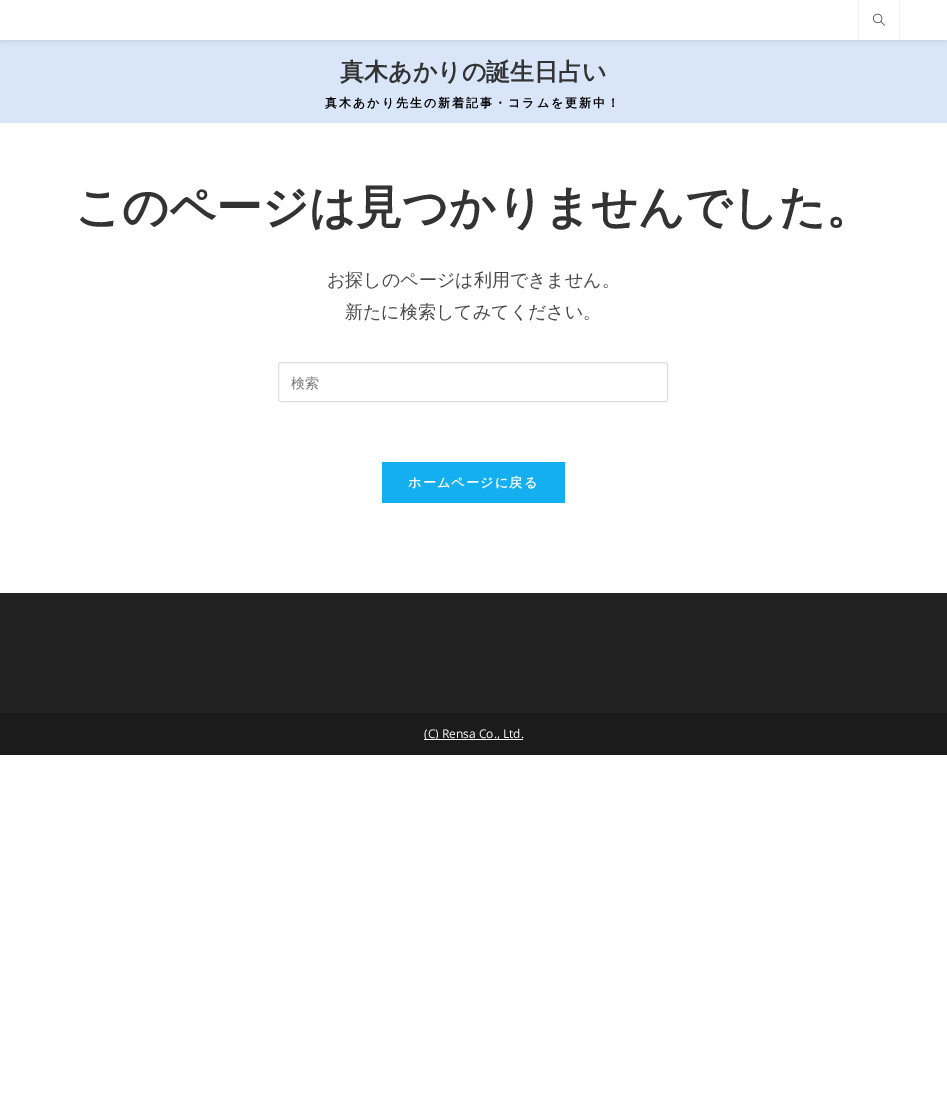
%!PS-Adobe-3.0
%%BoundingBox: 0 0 947 1104
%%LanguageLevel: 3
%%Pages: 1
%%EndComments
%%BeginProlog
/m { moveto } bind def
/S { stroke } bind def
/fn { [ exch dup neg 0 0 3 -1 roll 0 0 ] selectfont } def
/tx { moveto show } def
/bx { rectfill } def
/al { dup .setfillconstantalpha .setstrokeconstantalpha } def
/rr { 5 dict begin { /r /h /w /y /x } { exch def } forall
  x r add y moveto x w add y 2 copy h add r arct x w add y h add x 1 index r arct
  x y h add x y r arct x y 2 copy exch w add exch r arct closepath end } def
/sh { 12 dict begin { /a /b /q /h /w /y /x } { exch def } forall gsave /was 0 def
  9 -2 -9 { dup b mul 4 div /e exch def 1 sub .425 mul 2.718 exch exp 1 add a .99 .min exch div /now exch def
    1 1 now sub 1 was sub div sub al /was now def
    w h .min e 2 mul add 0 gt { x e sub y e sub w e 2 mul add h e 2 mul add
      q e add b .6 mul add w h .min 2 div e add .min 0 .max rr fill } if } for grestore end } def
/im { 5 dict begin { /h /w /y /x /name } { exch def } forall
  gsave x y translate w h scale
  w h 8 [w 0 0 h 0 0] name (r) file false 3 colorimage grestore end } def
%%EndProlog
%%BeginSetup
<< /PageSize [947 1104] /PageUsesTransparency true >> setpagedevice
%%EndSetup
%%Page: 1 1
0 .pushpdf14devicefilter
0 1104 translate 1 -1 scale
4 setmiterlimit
1 setgray
0 0 947 1104 bx
0.851 0.902 0.98 setrgbcolor
0 40 947 83 bx
0 setgray
0 1 947 40 0 2.5 0.1 sh
1 setgray
0 0 947 40 bx
0.945 setgray
899 0 1 40 bx
858 0 1 40 bx
(image0.raw) 873 13 12 13 im
/WenQuanYiZenHei-Bold 24 fn
0.2 setgray
(真木あかりの誕生日占い) 340 80 tx
/WenQuanYiZenHei-Bold 12 fn
0 setgray
325 107 m 2 0 (真木あかり先生の新着記事・コラムを更新中！) ashow
/WenQuanYiZenHei-Bold 46 fn
0.2 setgray
(このページは見つかりませんでした。) 75 223 tx
/WenQuanYiZenHei-Medium 18 fn
0.29 setgray
(お探しのページは利用できません。) 327 286 tx
(新たに検索してみてください。) 345 318 tx
0.867 setgray
278.5 362.5 389 39 2.5 rr S
/WenQuanYiZenHei-Medium 14 fn
0.459 setgray
(検索) 291 388 tx
0.075 0.686 0.941 setrgbcolor
382 462 183 41 bx
/WenQuanYiZenHei-Bold 13 fn
1 setgray
408 487 m 1.25 0 (ホームページに戻る) ashow
0.133 setgray
0 593 947 120 bx
0.106 setgray
0 713 947 42 bx
1 setgray
424 739 99 1 bx
/OpenSans-Regular 12 fn
(\(C\) Rensa Co., Ltd.) 424 738 tx
.poppdf14devicefilter showpage
%%EOF
